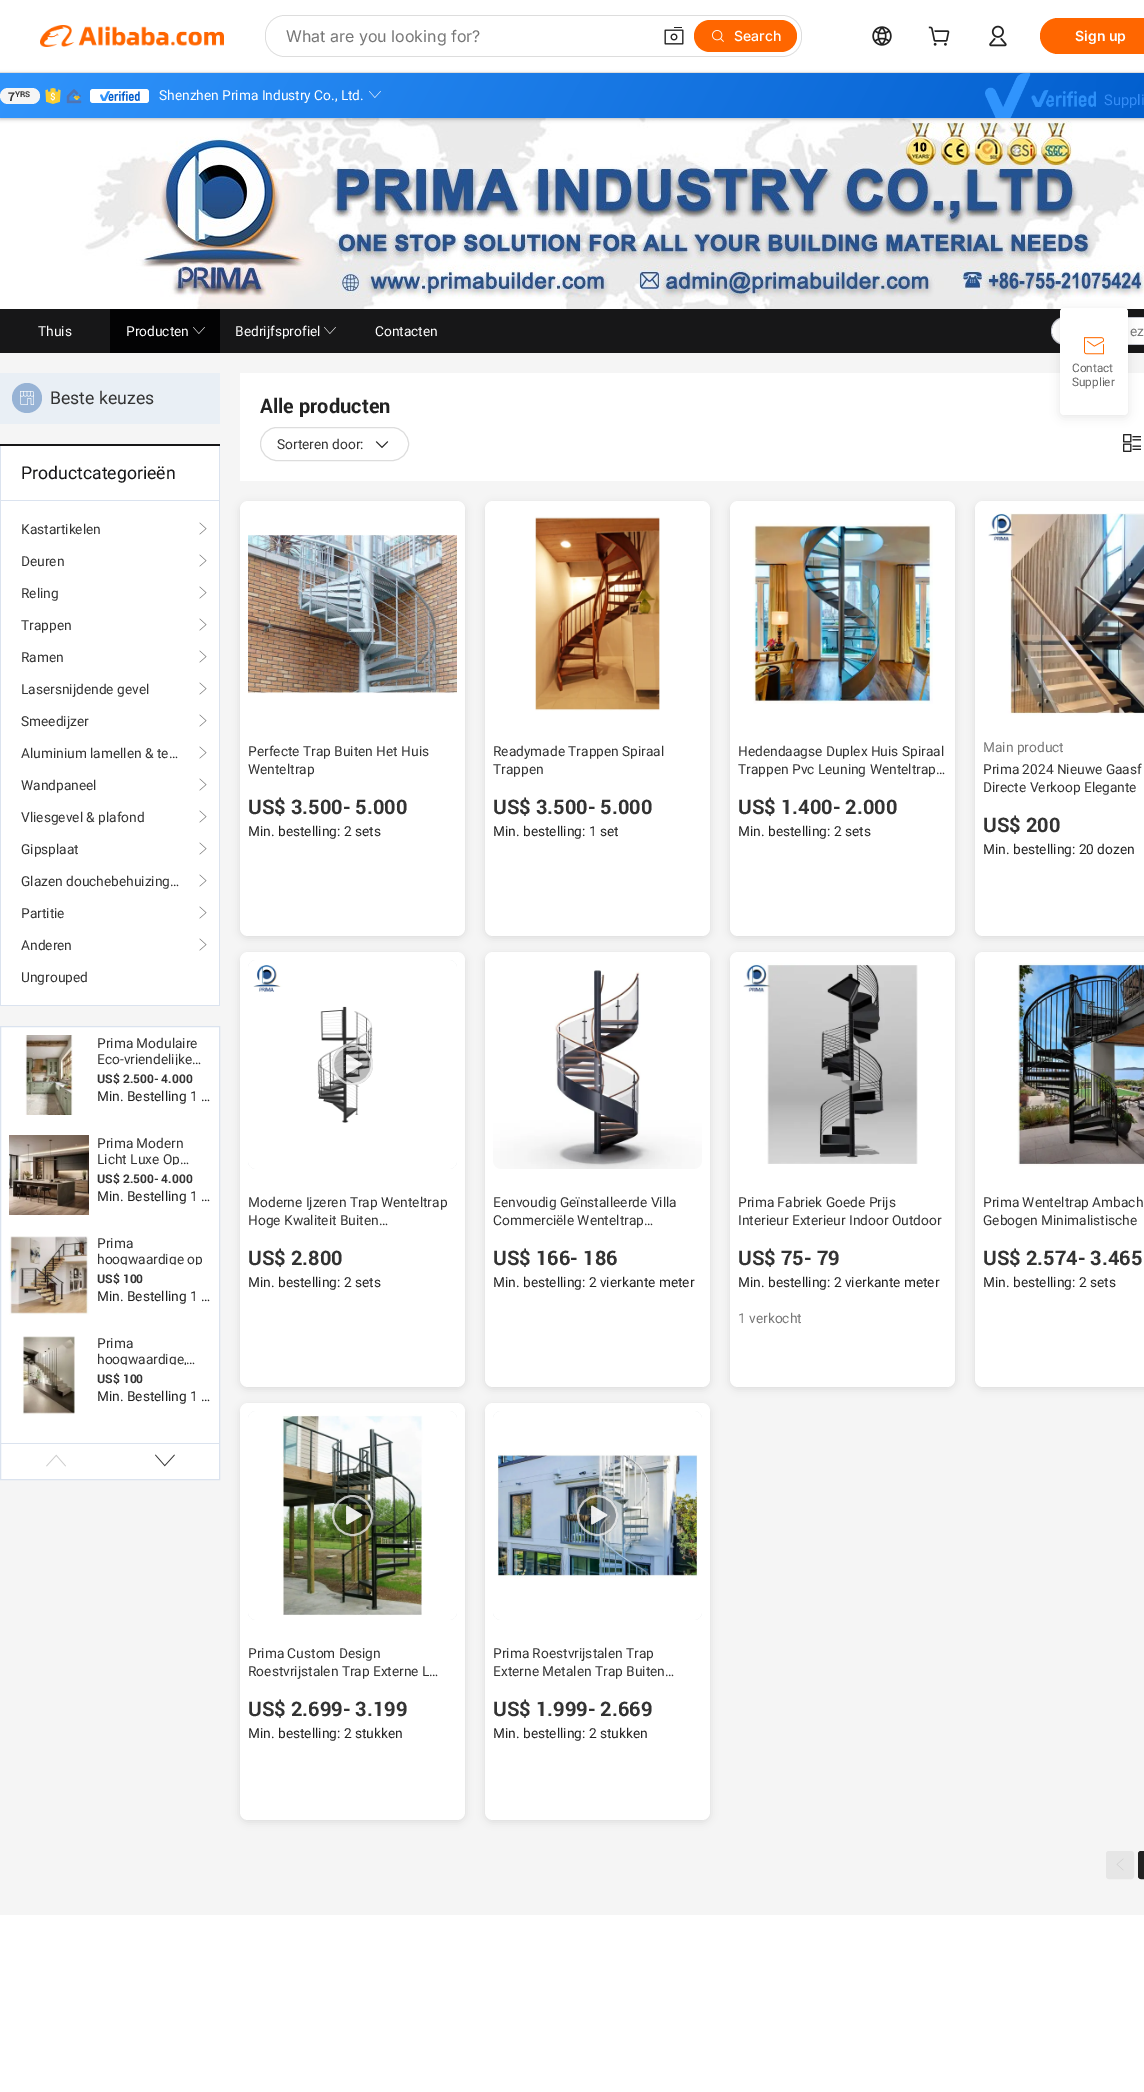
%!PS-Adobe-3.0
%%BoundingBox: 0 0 1144 2092
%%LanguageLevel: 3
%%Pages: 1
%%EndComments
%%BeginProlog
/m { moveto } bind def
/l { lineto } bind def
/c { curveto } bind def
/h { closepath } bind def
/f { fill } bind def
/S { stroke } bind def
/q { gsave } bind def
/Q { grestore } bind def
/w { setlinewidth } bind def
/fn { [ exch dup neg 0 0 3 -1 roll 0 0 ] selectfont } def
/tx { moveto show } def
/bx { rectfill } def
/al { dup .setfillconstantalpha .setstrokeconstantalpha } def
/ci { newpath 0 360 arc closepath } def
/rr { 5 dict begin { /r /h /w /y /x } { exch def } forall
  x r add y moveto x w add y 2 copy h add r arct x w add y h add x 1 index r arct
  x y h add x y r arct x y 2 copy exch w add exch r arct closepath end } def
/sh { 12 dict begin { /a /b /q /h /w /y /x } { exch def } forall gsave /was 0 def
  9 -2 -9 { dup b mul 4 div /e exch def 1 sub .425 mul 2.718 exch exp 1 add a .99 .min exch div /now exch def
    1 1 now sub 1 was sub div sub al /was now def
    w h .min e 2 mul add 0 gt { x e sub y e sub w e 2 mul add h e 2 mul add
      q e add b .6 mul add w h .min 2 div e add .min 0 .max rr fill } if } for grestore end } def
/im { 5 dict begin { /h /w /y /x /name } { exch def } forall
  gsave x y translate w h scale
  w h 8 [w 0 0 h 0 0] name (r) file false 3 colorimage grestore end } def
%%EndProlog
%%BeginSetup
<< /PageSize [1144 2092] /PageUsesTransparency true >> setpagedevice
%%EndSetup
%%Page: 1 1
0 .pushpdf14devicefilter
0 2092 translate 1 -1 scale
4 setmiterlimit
1 setgray
0 0 1144 2092 bx
(image11.raw) 0 118 1144 191 im
0 setgray
0 74 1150 45 0 2 0.28 sh
0.867 setgray
0 72 1144 1 bx
(image0.raw) 40 25 184 22 im
265 15 537 42 20 rr f
1 setgray
266 16 535 40 19 rr f
/Inter-Regular 16 fn
0.463 setgray
(What are you looking for?) 286 42 tx
(image1.raw) 664 27 20 18 im
1 0.4 0 setrgbcolor
694 20 103 32 16 rr f
(image2.raw) 712 30 12 12 im
/Inter-Medium 14 fn
1 setgray
(Search) 734 41 tx
(image3.raw) 872 26 20 20 im
(image4.raw) 928 26 22 20 im
(image5.raw) 989 25 18 22 im
1 0.4 0 setrgbcolor
1040 18 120 36 18 rr f
/Inter-SemiBold 14 fn
1 setgray
(Sign up) 1075 41 tx
q 0 73 m 1144 73 l 1144 118 l 0 118 l h clip newpath
<< /ShadingType 2 /ColorSpace /DeviceRGB /Coords [123 -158 1077 349] /Extend [true true] /Function << /FunctionType 2 /Domain [0 1] /C0 [0.188 0.58 0.988] /C1 [0 0.361 0.8] /N 1 >> >> shfill Q
0.961 setgray
0 88 40 16 8 rr f
/Roboto-Bold 12 fn
0.2 setgray
(7) 8 101 tx
/Roboto-Bold 8 fn
(YRS) 15 97 tx
(image6.raw) 45 88 16 16 im
(image7.raw) 66 89 16 15 im
1 setgray
90 89 59 14 3 rr f
(image8.raw) 100 91 40 10 im
/Roboto-Regular 14 fn
(Shenzhen Prima Industry Co., Ltd.) 159 100 tx
(image9.raw) 369 91 12 7 im
(image10.raw) 985 73 111 45 im
/Roboto-Regular 15 fn
0.204 0.553 0.973 setrgbcolor
(Suppli) 1104 105 tx
0.09 0.09 0.094 setrgbcolor
0 309 1144 44 bx
/Roboto-Regular 14 fn
1 setgray
(Thuis) 38 336 tx
0.012 0.012 0.016 setrgbcolor
110 309 110 44 bx
1 setgray
(Producten) 126 336 tx
(image12.raw) 193 327 12 7 im
(Bedrijfsprofiel) 235 336 tx
(image13.raw) 324 327 12 7 im
(Contacten) 375 336 tx
0.769 0.776 0.812 setrgbcolor
1065 317 m 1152 317 l 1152 345 l 1065 345 l 1057 345 1051 339 1051 331 c 1051 323 1057 317 1065 317 c h 1065 318 m 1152 318 l 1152 344 l 1065 344 l 1058 344 1052 338 1052 331 c 1052 324 1058 318 1065 318 c h eofill
1 setgray
1065 318 m 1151.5 318 l 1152 318 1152 318 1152 318.5 c 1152 343.5 l 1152 344 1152 344 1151.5 344 c 1065 344 l 1058 344 1052 338 1052 331 c 1052 324 1058 318 1065 318 c h f
0.463 setgray
(ez) 1130 336 tx
0.961 setgray
0 353 1144 1562 bx
0.914 0.937 0.961 setrgbcolor
0 373 220 51 bx
0.592 0.702 0.835 setrgbcolor
27 398 15 ci f
(image14.raw) 20 391 14 14 im
/Roboto-Regular 18 fn
0.2 setgray
(Beste keuzes) 50 404 tx
1 setgray
1 446 218 559 bx
0.09 0.09 0.094 setrgbcolor
0 444 220 2 bx
0.859 0.89 0.937 setrgbcolor
219 446 1 560 bx
0 1005 220 1 bx
0 446 1 560 bx
1 500 218 1 bx
0.09 0.09 0.094 setrgbcolor
(Productcategorieën) 21 479 tx
/Roboto-Regular 14 fn
0.2 setgray
(Kastartikelen) 21 534 tx
(image15.raw) 199 522 8 13 im
(Deuren) 21 566 tx
(image15.raw) 199 554 8 13 im
(Reling) 21 598 tx
(image15.raw) 199 586 8 13 im
(Trappen) 21 630 tx
(image15.raw) 199 618 8 13 im
(Ramen) 21 662 tx
(image15.raw) 199 650 8 13 im
(Lasersnijdende gevel) 21 694 tx
(image15.raw) 199 682 8 13 im
(Smeedijzer) 21 726 tx
(image15.raw) 199 714 8 13 im
(Aluminium lamellen & te…) 21 758 tx
(image15.raw) 199 746 8 13 im
(Wandpaneel) 21 790 tx
(image15.raw) 199 778 8 13 im
(Vliesgevel & plafond) 21 822 tx
(image15.raw) 199 810 8 13 im
(Gipsplaat) 21 854 tx
(image15.raw) 199 842 8 13 im
(Glazen douchebehuizing…) 21 886 tx
(image15.raw) 199 874 8 13 im
(Partitie) 21 918 tx
(image15.raw) 199 906 8 13 im
(Anderen) 21 950 tx
(image15.raw) 199 938 8 13 im
(Ungrouped) 21 982 tx
1 setgray
0.5 1026.5 m 219.5 1026.5 l 219.5 1479.5 l 0.5 1479.5 l h q f Q
0.859 0.89 0.937 setrgbcolor
S
(image16.raw) 25 1035 48 80 im
0.2 setgray
(Prima Modulaire) 97 1048 tx
q
97 1035 114 30 rectclip
(Eco-vriendelijke…) 97 1064 tx
Q
/Roboto-Bold 12 fn
(US$ 2.500- 4.000) 97 1083 tx
/Roboto-Regular 14 fn
0.133 setgray
(Min. Bestelling 1 …) 97 1101 tx
(image17.raw) 9 1135 80 80 im
0.2 setgray
(Prima Modern) 97 1148 tx
q
97 1135 114 30 rectclip
(Licht Luxe Op…) 97 1164 tx
Q
/Roboto-Bold 12 fn
(US$ 2.500- 4.000) 97 1183 tx
/Roboto-Regular 14 fn
0.133 setgray
(Min. Bestelling 1 …) 97 1201 tx
(image18.raw) 9 1236 80 79 im
0.2 setgray
(Prima) 97 1248 tx
q
97 1235 114 30 rectclip
(hoogwaardige op) 97 1264 tx
Q
/Roboto-Bold 12 fn
(US$ 100) 97 1283 tx
/Roboto-Regular 14 fn
0.133 setgray
(Min. Bestelling 1 …) 97 1301 tx
(image19.raw) 22 1336 53 79 im
0.2 setgray
(Prima) 97 1348 tx
q
97 1335 114 30 rectclip
(hoogwaardige,…) 97 1364 tx
Q
/Roboto-Bold 12 fn
(US$ 100) 97 1383 tx
/Roboto-Regular 14 fn
0.133 setgray
(Min. Bestelling 1 …) 97 1401 tx
0.859 0.89 0.937 setrgbcolor
1 1443 218 1 bx
(image20.raw) 46 1454 20 13 im
(image21.raw) 155 1454 20 13 im
1 setgray
240 373 904 108 bx
/Roboto-Bold 20 fn
0.133 setgray
(Alle producten) 260 413 tx
0.867 setgray
260.5 427.5 148 33 16.5 rr S
/Roboto-Regular 14 fn
0.2 setgray
(Sorteren door:) 277 449 tx
(image22.raw) 375 441 14 7 im
(image23.raw) 1123 434 18 18 im
0 setgray
240 503 225 435 8 4 0.1 sh
1 setgray
240 501 225 435 8 rr f
(image24.raw) 248 534 209 160 im
0.2 setgray
(Perfecte Trap Buiten Het Huis) 248 756 tx
(Wenteltrap) 248 774 tx
/Roboto-Bold 20 fn
(US$ 3.500- 5.000) 248 814 tx
/Roboto-Regular 14 fn
0.133 setgray
(Min. bestelling: 2 sets) 248 836 tx
0 setgray
485 503 225 435 8 4 0.1 sh
1 setgray
485 501 225 435 8 rr f
(image25.raw) 535 516 125 195 im
0.2 setgray
(Readymade Trappen Spiraal) 493 756 tx
(Trappen) 493 774 tx
/Roboto-Bold 20 fn
(US$ 3.500- 5.000) 493 814 tx
/Roboto-Regular 14 fn
0.133 setgray
(Min. bestelling: 1 set) 493 836 tx
0 setgray
730 503 225 435 8 4 0.1 sh
1 setgray
730 501 225 435 8 rr f
(image26.raw) 753 523 180 181 im
0.2 setgray
(Hedendaagse Duplex Huis Spiraal) 738 756 tx
(Trappen Pvc Leuning Wenteltrap…) 738 774 tx
/Roboto-Bold 20 fn
(US$ 1.400- 2.000) 738 814 tx
/Roboto-Regular 14 fn
0.133 setgray
(Min. bestelling: 2 sets) 738 836 tx
0 setgray
975 503 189 435 8 4 0.1 sh
1 setgray
975 501 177 435 8 rr f
(image27.raw) 988 513 156 203 im
0.463 setgray
(Main product) 983 752 tx
0.2 setgray
(Prima 2024 Nieuwe Gaasf) 983 774 tx
(Directe Verkoop Elegante) 983 792 tx
/Roboto-Bold 20 fn
(US$ 200) 983 832 tx
/Roboto-Regular 14 fn
0.133 setgray
(Min. bestelling: 20 dozen) 983 854 tx
0 setgray
240 954 225 435 8 4 0.1 sh
1 setgray
240 952 225 435 8 rr f
(image28.raw) 248 960 209 209 im
0.27 al
0 setgray
352.5 1064.5 20.5 ci f
0.72 al
1 setgray
2 w
352.5 1064.5 19.5 ci S
1 al
(image29.raw) 346 1054 17 20 im
0.2 setgray
(Moderne Ijzeren Trap Wenteltrap) 248 1207 tx
(Hoge Kwaliteit Buiten…) 248 1225 tx
/Roboto-Bold 20 fn
(US$ 2.800) 248 1265 tx
/Roboto-Regular 14 fn
0.133 setgray
(Min. bestelling: 2 sets) 248 1287 tx
0 setgray
485 954 225 435 8 4 0.1 sh
1 setgray
485 952 225 435 8 rr f
(image30.raw) 493 970 209 199 im
0.2 setgray
(Eenvoudig Geïnstalleerde Villa) 493 1207 tx
(Commerciële Wenteltrap…) 493 1225 tx
/Roboto-Bold 20 fn
(US$ 166- 186) 493 1265 tx
/Roboto-Regular 14 fn
0.133 setgray
(Min. bestelling: 2 vierkante meter) 493 1287 tx
0 setgray
730 954 225 435 8 4 0.1 sh
1 setgray
730 952 225 435 8 rr f
(image31.raw) 743 963 175 201 im
0.2 setgray
(Prima Fabriek Goede Prijs) 738 1207 tx
(Interieur Exterieur Indoor Outdoor) 738 1225 tx
/Roboto-Bold 20 fn
(US$ 75- 79) 738 1265 tx
/Roboto-Regular 14 fn
0.133 setgray
(Min. bestelling: 2 vierkante meter) 738 1287 tx
0.463 setgray
(1 verkocht) 738 1323 tx
0 setgray
975 954 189 435 8 4 0.1 sh
1 setgray
975 952 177 435 8 rr f
(image32.raw) 1017 963 127 204 im
0.2 setgray
(Prima Wenteltrap Ambach) 983 1207 tx
(Gebogen Minimalistische) 983 1225 tx
/Roboto-Bold 20 fn
(US$ 2.574- 3.465) 983 1265 tx
/Roboto-Regular 14 fn
0.133 setgray
(Min. bestelling: 2 sets) 983 1287 tx
0 setgray
240 1405 225 417 8 4 0.1 sh
1 setgray
240 1403 225 417 8 rr f
(image33.raw) 248 1411 209 209 im
0.27 al
0 setgray
352.5 1515.5 20.5 ci f
0.72 al
1 setgray
352.5 1515.5 19.5 ci S
1 al
(image34.raw) 346 1505 17 20 im
0.2 setgray
(Prima Custom Design) 248 1658 tx
(Roestvrijstalen Trap Externe L…) 248 1676 tx
/Roboto-Bold 20 fn
(US$ 2.699- 3.199) 248 1716 tx
/Roboto-Regular 14 fn
0.133 setgray
(Min. bestelling: 2 stukken) 248 1738 tx
0 setgray
485 1405 225 417 8 4 0.1 sh
1 setgray
485 1403 225 417 8 rr f
(image35.raw) 493 1411 209 209 im
0.27 al
0 setgray
597.5 1515.5 20.5 ci f
0.72 al
1 setgray
597.5 1515.5 19.5 ci S
1 al
(image36.raw) 591 1505 17 20 im
0.2 setgray
(Prima Roestvrijstalen Trap) 493 1658 tx
(Externe Metalen Trap Buiten…) 493 1676 tx
/Roboto-Bold 20 fn
(US$ 1.999- 2.669) 493 1716 tx
/Roboto-Regular 14 fn
0.133 setgray
(Min. bestelling: 2 stukken) 493 1738 tx
0.902 setgray
1106.5 1851.5 27 27 2.5 rr q f Q
1 w
S
(image37.raw) 1116 1858 8 13 im
0.133 setgray
1138.5 1851.5 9 27 2.5 rr q f Q
S
0 setgray
1060 310 68 107 4 5 0.1 sh
1 setgray
1060 308 68 107 4 rr f
(image38.raw) 1084 337 20 18 im
/Roboto-Regular 12 fn
0.4 setgray
(Contact) 1072 372 tx
(Supplier) 1072 386 tx
.poppdf14devicefilter showpage
%%EOF
